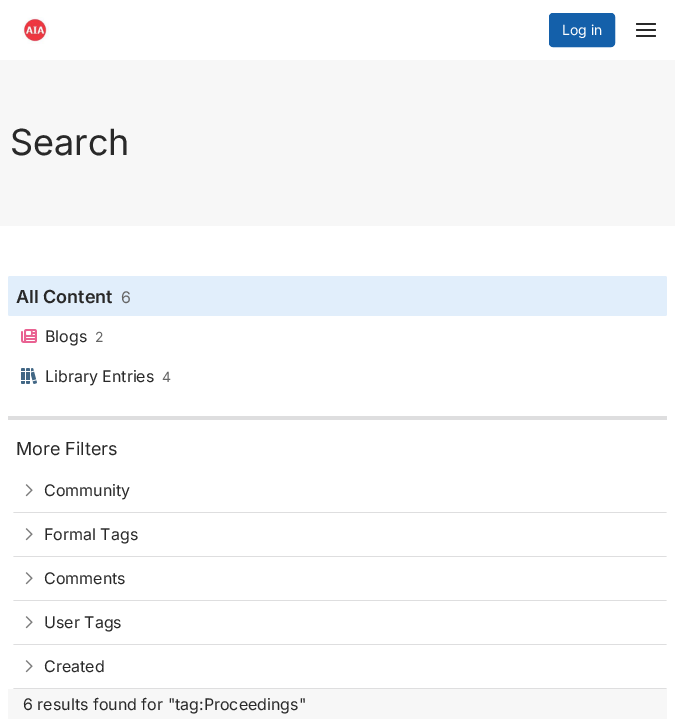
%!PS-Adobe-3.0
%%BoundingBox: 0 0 675 719
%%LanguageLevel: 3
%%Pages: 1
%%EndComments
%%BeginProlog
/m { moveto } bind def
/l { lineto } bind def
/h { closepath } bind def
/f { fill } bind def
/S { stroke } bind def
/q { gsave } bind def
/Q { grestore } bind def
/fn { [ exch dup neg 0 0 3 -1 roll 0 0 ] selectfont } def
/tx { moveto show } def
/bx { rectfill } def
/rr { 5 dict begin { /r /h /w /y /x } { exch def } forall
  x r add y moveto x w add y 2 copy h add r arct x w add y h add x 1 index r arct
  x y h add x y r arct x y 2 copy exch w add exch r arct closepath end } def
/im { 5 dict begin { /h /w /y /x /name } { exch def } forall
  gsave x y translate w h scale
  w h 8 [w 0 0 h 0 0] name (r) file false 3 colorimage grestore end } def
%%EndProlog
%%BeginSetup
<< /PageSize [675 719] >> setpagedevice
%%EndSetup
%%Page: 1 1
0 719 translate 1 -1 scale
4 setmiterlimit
1 setgray
0 0 675 719 bx
(image0.raw) 22 17 27 27 im
0.078 0.376 0.667 setrgbcolor
549.5 13.5 65 33 3.5 rr q f Q
S
/Inter-Regular 14 fn
1 setgray
(Log in) 562 35 tx
0.161 setgray
636 23 20 2 1 rr f
636 29 20 2 1 rr f
636 35 20 2 1 rr f
0.969 setgray
0 60 675 166 bx
/Inter-Regular 36 fn
0.161 setgray
(Search) 10 155 tx
0.882 0.933 0.984 setrgbcolor
8 276 659 40 2 rr f
/Inter-SemiBold 18 fn
0.161 setgray
(All Content) 16 303 tx
/Inter-Regular 16 fn
0.4 setgray
(6) 121 303 tx
(image1.raw) 21 329 16 14 im
0.161 setgray
(Blogs) 45 342 tx
/Inter-Regular 14 fn
0.4 setgray
(2) 95 342 tx
(image2.raw) 21 368 16 16 im
/Inter-Regular 16 fn
0.161 setgray
(Library Entries) 45 382 tx
/Inter-Regular 14 fn
0.4 setgray
(4) 162 382 tx
0.871 0.871 0.875 setrgbcolor
8 416 659 4 bx
/Inter-Regular 18 fn
0.161 setgray
(More Filters) 16 455 tx
0.871 0.871 0.875 setrgbcolor
667 513 m 13 513 l 14 512 l 666 512 l h f
(image3.raw) 25 484 8 13 im
/Inter-Regular 16 fn
0.161 setgray
(Community) 44 496 tx
0.871 0.871 0.875 setrgbcolor
667 557 m 13 557 l 14 556 l 666 556 l h f
(image3.raw) 25 528 8 13 im
0.161 setgray
(Formal Tags) 44 540 tx
0.871 0.871 0.875 setrgbcolor
667 601 m 13 601 l 14 600 l 666 600 l h f
(image3.raw) 25 572 8 13 im
0.161 setgray
(Comments) 44 584 tx
0.871 0.871 0.875 setrgbcolor
667 645 m 13 645 l 14 644 l 666 644 l h f
(image3.raw) 25 616 8 13 im
0.161 setgray
(User Tags) 44 628 tx
0.871 0.871 0.875 setrgbcolor
667 689 m 13 689 l 14 688 l 666 688 l h f
(image3.raw) 25 660 8 13 im
0.161 setgray
(Created) 44 672 tx
0.969 setgray
8 689 659 30 bx
0.161 setgray
(6 results found for "tag:Proceedings") 23 710 tx
showpage
%%EOF
